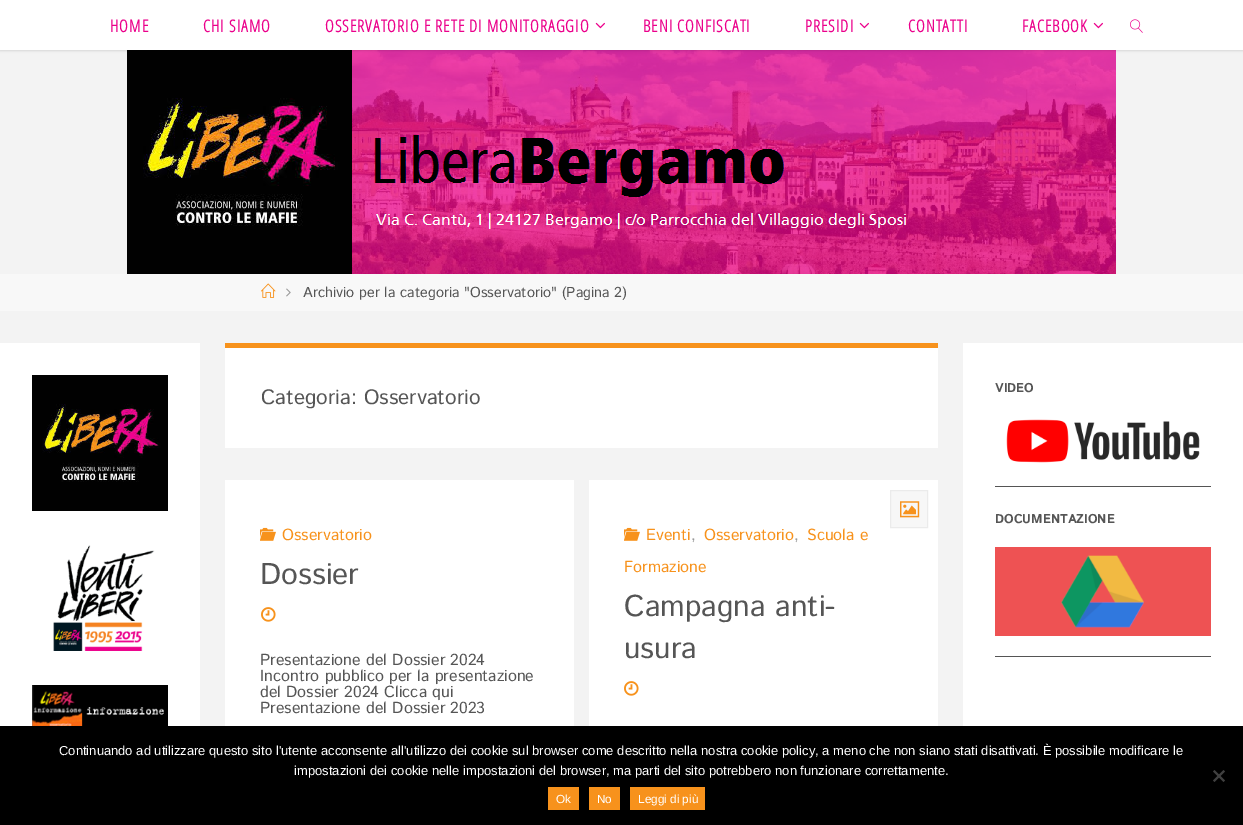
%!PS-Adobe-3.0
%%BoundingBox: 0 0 1243 825
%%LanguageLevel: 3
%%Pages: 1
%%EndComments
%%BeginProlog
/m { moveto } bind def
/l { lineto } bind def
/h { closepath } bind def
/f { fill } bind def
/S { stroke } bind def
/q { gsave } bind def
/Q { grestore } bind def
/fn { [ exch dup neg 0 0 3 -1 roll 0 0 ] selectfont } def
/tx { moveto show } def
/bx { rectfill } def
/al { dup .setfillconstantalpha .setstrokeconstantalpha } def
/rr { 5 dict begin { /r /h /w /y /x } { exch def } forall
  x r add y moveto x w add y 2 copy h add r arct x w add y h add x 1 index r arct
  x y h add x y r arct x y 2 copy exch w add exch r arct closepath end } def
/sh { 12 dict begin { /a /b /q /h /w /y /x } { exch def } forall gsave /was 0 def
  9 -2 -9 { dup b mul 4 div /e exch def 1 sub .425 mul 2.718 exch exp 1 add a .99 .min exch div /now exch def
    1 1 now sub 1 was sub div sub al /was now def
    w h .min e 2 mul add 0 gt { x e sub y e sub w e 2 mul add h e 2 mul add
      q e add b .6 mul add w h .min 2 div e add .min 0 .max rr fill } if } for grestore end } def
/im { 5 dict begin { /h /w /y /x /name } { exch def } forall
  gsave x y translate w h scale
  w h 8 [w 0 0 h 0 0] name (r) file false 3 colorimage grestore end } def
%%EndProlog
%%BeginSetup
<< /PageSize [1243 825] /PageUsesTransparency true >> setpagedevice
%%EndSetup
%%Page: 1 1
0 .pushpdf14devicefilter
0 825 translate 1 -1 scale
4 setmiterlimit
0.953 setgray
0 0 1243 825 bx
(image2.raw) 127 50 989 224 im
0 setgray
0 0 1243 50 0 1.5 0.2 sh
1 setgray
0 0 1243 50 bx
/OpenSansCondensed-Bold 16.75 fn
0.922 0 0.545 setrgbcolor
110 32 m 1 0 (HOME) ashow
203 32 m 1 0 (CHI SIAMO) ashow
325 32 m 1 0 (OSSERVATORIO E RETE DI MONITORAGGIO) ashow
(image0.raw) 595 22 10 7 im
643 32 m 1 0 (BENI CONFISCATI) ashow
805 32 m 1 0 (PRESIDI) ashow
(image0.raw) 859 22 10 7 im
908 32 m 1 0 (CONTATTI) ashow
1022 32 m 1 0 (FACEBOOK) ashow
(image0.raw) 1093 22 10 7 im
(image1.raw) 1130 19 13 14 im
0.973 setgray
0 274 1243 37 bx
(image3.raw) 261 283 15 15 im
(image4.raw) 286 288 5 9 im
/IstokWeb-Regular 14.4 fn
0.333 setgray
(Archivio per la categoria "Osservatorio" \(Pagina 2\)) 303 297 tx
1 setgray
0 343 200 383 bx
(image5.raw) 32 375 136 136 im
(image6.raw) 53 545 102 106 im
(image7.raw) 32 685 136 41 im
225 348 713 100 bx
0.969 0.573 0.11 setrgbcolor
225 343 713 5 bx
/IstokWeb-Regular 20.75 fn
0.333 setgray
(Categoria: Osservatorio) 261 404 tx
1 setgray
225 480 349 246 bx
(image8.raw) 260 527 16 14 im
/IstokWeb-Regular 16 fn
0.969 0.573 0.11 setrgbcolor
(Osservatorio) 282 540 tx
/IstokWeb-Regular 30 fn
0.333 setgray
(Dossier) 260 584 tx
(image9.raw) 261 607 15 15 im
/IstokWeb-Regular 16 fn
(Presentazione del Dossier 2024) 260 665 tx
(Incontro pubblico per la presentazione) 260 681 tx
(del Dossier 2024 Clicca qui) 260 697 tx
(Presentazione del Dossier 2023) 260 713 tx
1 setgray
589 480 349 246 bx
0.969 setgray
890.5 490.5 m 927.5 490.5 l 927.5 527.5 l 890.5 527.5 l h q f Q
0.922 setgray
S
(image10.raw) 900 501 20 17 im
(image8.raw) 624 527 16 14 im
0.969 0.573 0.11 setrgbcolor
(Eventi) 646 540 tx
0.604 setgray
(,) 691 540 tx
0.969 0.573 0.11 setrgbcolor
(Osservatorio) 704 540 tx
0.604 setgray
(,) 794 540 tx
0.969 0.573 0.11 setrgbcolor
(Scuola e) 807 540 tx
(Formazione) 624 572 tx
/IstokWeb-Regular 30 fn
0.333 setgray
(Campagna anti-) 624 616 tx
(usura) 624 658 tx
(image9.raw) 624 681 15 15 im
1 setgray
963 343 280 383 bx
0.333 setgray
995 486 216 1 bx
/IstokWeb-Bold 12.75 fn
(VIDEO) 995 392 tx
(image11.raw) 1006 419 194 44 im
995 656 216 1 bx
(DOCUMENTAZIONE) 995 523 tx
(image12.raw) 995 547 216 89 im
0 setgray
0 726 1243 99 bx
/LiberationSans-Regular 13 fn
1 setgray
(Continuando ad utilizzare questo sito l'utente acconsente all'utilizzo dei cookie sul browser come descritto nella nostra cookie policy, a meno che non siano stati disattivati. È possibile modificare le) 59 755 tx
(impostazioni dei cookie nelle impostazioni del browser, ma parti del sito potrebbero non funzionare correttamente.) 294 775 tx
0.251 setgray
1223.5 770 m 1225 771.5 l 1214.5 782 l 1213 780.5 l h f
1213 771.5 m 1214.5 770 l 1225 780.5 l 1223.5 782 l h f
0.969 0.573 0.11 setrgbcolor
548 787 31 23 bx
/LiberationSans-Regular 11.75 fn
1 setgray
(Ok) 556 803 tx
0.969 0.573 0.11 setrgbcolor
589 787 31 23 bx
1 setgray
(No) 597 803 tx
0.969 0.573 0.11 setrgbcolor
630 787 75 23 bx
1 setgray
(Leggi di più) 638 803 tx
.poppdf14devicefilter showpage
%%EOF
